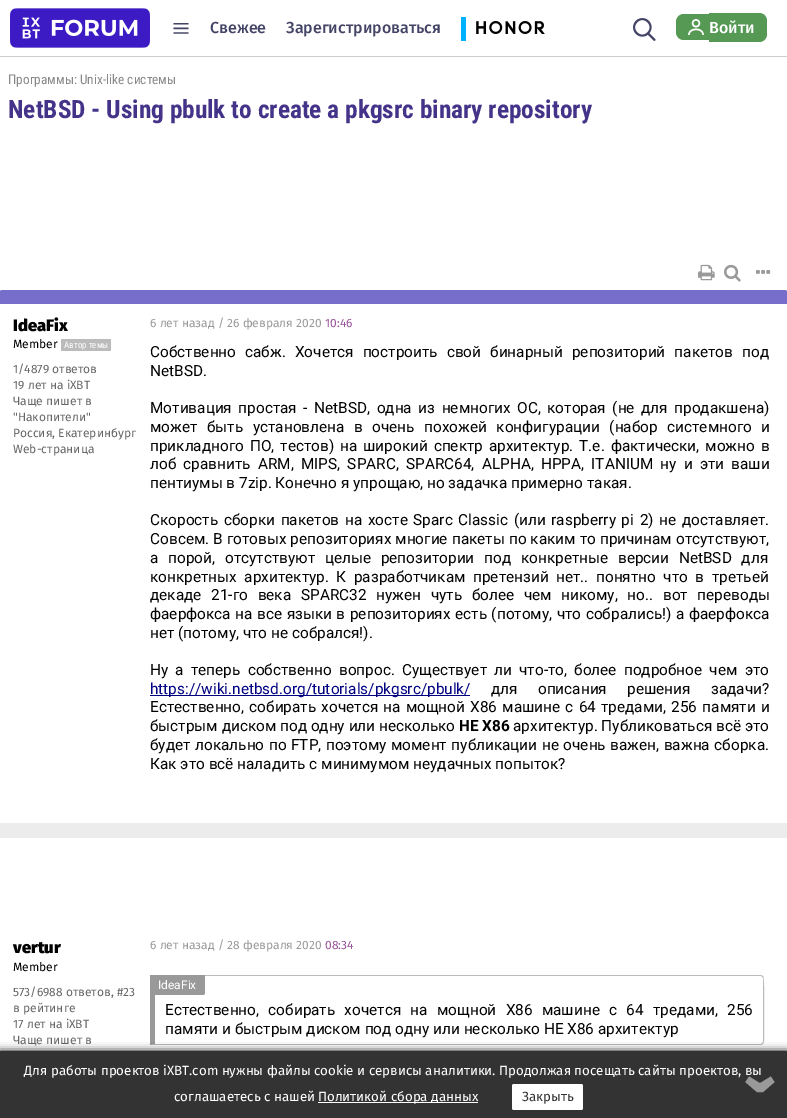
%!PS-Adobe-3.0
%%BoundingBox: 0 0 787 1118
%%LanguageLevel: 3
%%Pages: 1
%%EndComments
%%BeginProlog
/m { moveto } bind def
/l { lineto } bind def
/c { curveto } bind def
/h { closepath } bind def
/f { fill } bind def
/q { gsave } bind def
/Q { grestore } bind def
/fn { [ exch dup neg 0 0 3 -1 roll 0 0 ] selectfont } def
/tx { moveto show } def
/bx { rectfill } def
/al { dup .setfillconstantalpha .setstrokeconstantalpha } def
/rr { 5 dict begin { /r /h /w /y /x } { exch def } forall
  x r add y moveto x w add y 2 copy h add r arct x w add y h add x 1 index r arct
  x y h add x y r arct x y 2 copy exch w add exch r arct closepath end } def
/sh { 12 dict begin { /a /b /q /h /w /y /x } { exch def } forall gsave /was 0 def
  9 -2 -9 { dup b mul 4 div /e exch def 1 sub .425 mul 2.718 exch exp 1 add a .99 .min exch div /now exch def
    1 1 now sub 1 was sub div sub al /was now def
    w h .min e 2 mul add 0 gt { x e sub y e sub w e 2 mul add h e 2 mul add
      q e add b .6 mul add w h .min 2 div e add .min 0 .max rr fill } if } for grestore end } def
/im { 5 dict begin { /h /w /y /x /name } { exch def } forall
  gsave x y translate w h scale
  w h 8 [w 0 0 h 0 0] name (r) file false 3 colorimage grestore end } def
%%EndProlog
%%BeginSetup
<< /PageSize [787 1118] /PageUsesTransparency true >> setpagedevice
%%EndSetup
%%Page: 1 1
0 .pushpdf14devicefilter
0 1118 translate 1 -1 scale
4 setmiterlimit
1 setgray
0 0 787 1118 bx
0.8 setgray
0 56 787 1 bx
(image0.raw) 10 8 140 40 im
/LiberationSerif-Regular 32 fn
0.267 0.267 0.4 setrgbcolor
(≡) 172 39 tx
/FiraSans-Medium 16 fn
(Свежее) 210 33 tx
(Зарегистрироваться) 286 33 tx
0 0.694 1 setrgbcolor
461 17 5 24 bx
(image1.raw) 476 21 69 13 im
(image2.raw) 633 18 23 23 im
0.333 0.6 0.333 setrgbcolor
684 14 m 709 14 l 709 40 l 684 40 l 679.5 40 676 36.5 676 32 c 676 22 l 676 17.5 679.5 14 684 14 c h f
(image3.raw) 688 19 16 16 im
709 13 m 759 13 l 763.5 13 767 16.5 767 21 c 767 34 l 767 38.5 763.5 42 759 42 c 709 42 l h f
1 setgray
(Войти) 709 33 tx
/RobotoCondensed-Regular 13.33 fn
0.533 setgray
(Программы: Unix-like системы) 8 84 tx
/RobotoCondensed-Bold 25.3 fn
0.267 0.2 0.533 setrgbcolor
(NetBSD - Using pbulk to create a pkgsrc binary repository) 8 118 tx
(image4.raw) 698 264 17 17 im
(image5.raw) 724 264 17 18 im
(image6.raw) 756 270 15 4 im
0.467 0.431 0.796 setrgbcolor
3 290 m 784 290 l 787 290 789 292 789 295 c 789 304 l -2 304 l -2 295 l -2 292 0 290 3 290 c h f
/FiraSans-Black 16.5 fn
0 setgray
(IdeaFix) 13 331 tx
/FiraSans-Regular 12 fn
(Member) 13 348 tx
0.733 setgray
61 339 50 12 1 rr f
/RobotoCondensed-Regular 9 fn
1 setgray
(Автор темы) 64 348 tx
/FiraSans-Regular 12 fn
0.4 setgray
(1/4879 ответов) 13 373 tx
(19 лет на iXBT) 13 389 tx
(Чаще пишет в) 13 405 tx
("Накопители") 13 421 tx
(Россия, Екатеринбург) 13 437 tx
(Web-страница) 13 453 tx
0.6 setgray
(6 лет назад / 26 февраля 2020) 150 327 tx
0.6 0.333 0.6 setrgbcolor
(10:46) 325 327 tx
/Roboto-Regular 15.35 fn
0 setgray
150 357 m 5.25 0 32 (Собственно сабж. Хочется построить свой бинарный репозиторий пакетов под) widthshow
(NetBSD.) 150 376 tx
150 413 m 2.75 0 32 (Мотивация простая - NetBSD, одна из немногих ОС, которая \(не для продакшена\)) widthshow
150 432 m 5.75 0 32 (может быть установлена в очень похожей конфигурации \(набор системного и) widthshow
150 451 m 2.1 0 32 (прикладного ПО, тестов\) на широкий спектр архитектур. Т.е. фактически, можно в) widthshow
150 469 m 3.4 0 32 (лоб сравнить ARM, MIPS, SPARC, SPARC64, ALPHA, HPPA, ITANIUM ну и эти ваши) widthshow
(пентиумы в 7zip. Конечно я упрощаю, но задачка примерно такая.) 150 488 tx
150 525 m 1.9 0 32 (Скорость сборки пакетов на хосте Sparc Classic \(или raspberry pi 2\) не доставляет.) widthshow
150 544 m 0.25 0 32 (Совсем. В готовых репозиториях многие пакеты по каким то причинам отсутствуют,) widthshow
150 563 m 6 0 32 (а порой, отсутствуют целые репозитории под конкретные версии NetBSD для) widthshow
150 582 m 3.75 0 32 (конкретных архитектур. К разработчикам претензий нет.. понятно что в третьей) widthshow
150 600 m 5.9 0 32 (декаде 21-го века SPARC32 нужен чуть более чем никому, но.. вот переводы) widthshow
150 619 m 0.75 0 32 (фаерфокса на все языки в репозиториях есть \(потому, что собрались!\) а фаерфокса) widthshow
(нет \(потому, что не собрался!\).) 150 638 tx
150 675 m 3.4 0 32 (Ну а теперь собственно вопрос. Существует ли что-то, более подробное чем это) widthshow
0 0 0.502 setrgbcolor
150 695 320 1 bx
(https://wiki.netbsd.org/tutorials/pkgsrc/pbulk/) 150 694 tx
0 setgray
491 694 m 16.5 0 32 (для описания решения задачи?) widthshow
150 712 m 1.4 0 32 (Естественно, собирать хочется на мощной X86 машине с 64 тредами, 256 памяти и) widthshow
(быстрым диском под одну или несколько) 150 731 tx
/Roboto-Bold 15.35 fn
(НЕ X86) 459 731 tx
/Roboto-Regular 15.35 fn
(архитектур. Публиковаться всё это) 513 731 tx
150 750 m 0.75 0 32 (будет локально по FTP, поэтому момент публикации не очень важен, важна сборка.) widthshow
(Как это всё наладить с минимумом неудачных попыток?) 150 769 tx
0.925 setgray
0 823 787 15 bx
/FiraSans-Black 16.5 fn
0 setgray
(vertur) 13 953 tx
/FiraSans-Regular 12 fn
(Member) 13 971 tx
0.4 setgray
(573/6988 ответов, #23) 13 996 tx
(в рейтинге) 13 1012 tx
(17 лет на iXBT) 13 1028 tx
(Чаще пишет в) 13 1044 tx
0.6 setgray
(6 лет назад / 28 февраля 2020) 150 949 tx
0.6 0.333 0.6 setrgbcolor
(08:34) 325 949 tx
0.733 setgray
150 975 m 155 976 l 761 976 l 762 977 l 763 976 l 761 975 l h f
764 1042 m 764 1035 765 977 763 976 c 762 977 l 763 978 l 763 1042 l 762 1043 l 763 1044 l h f
761 1045 m 763 1044 l 762 1043 l 761 1044 l 155 1044 l 150 1045 l h f
0.6 setgray
150 975 m 150 1045 l 155 1044 l 155 976 l h f
150 975 m 205 975 l 205 993 l 205 994 204 995 203 995 c 152 995 l 151 995 150 994 150 993 c h f
/Roboto-Regular 12 fn
1 setgray
(IdeaFix) 158 989 tx
/Roboto-Regular 15.35 fn
0 setgray
165 1015 m 5.5 0 32 (Естественно, собирать хочется на мощной X86 машине с 64 тредами, 256) widthshow
(памяти и быстрым диском под одну или несколько НЕ X86 архитектур) 165 1034 tx
0 1051 787 67 0 4 1 sh
0.2 setgray
0 1051 787 67 bx
/FiraSans-Regular 13.33 fn
1 setgray
(Для работы проектов iXBT.com нужны файлы cookie и сервисы аналитики. Продолжая посещать сайты проектов, вы) 24 1075 tx
(соглашаетесь с нашей) 174 1101 tx
318 1102 160 1 bx
(Политикой сбора данных) 318 1101 tx
512 1084 71 26 2 rr f
0.2 setgray
(Закрыть) 522 1101 tx
/FiraSans-ExtraBold 53 fn
0.6 setgray
q 775 1094 translate -90 rotate 0 0 m (‹) show Q
.poppdf14devicefilter showpage
%%EOF
